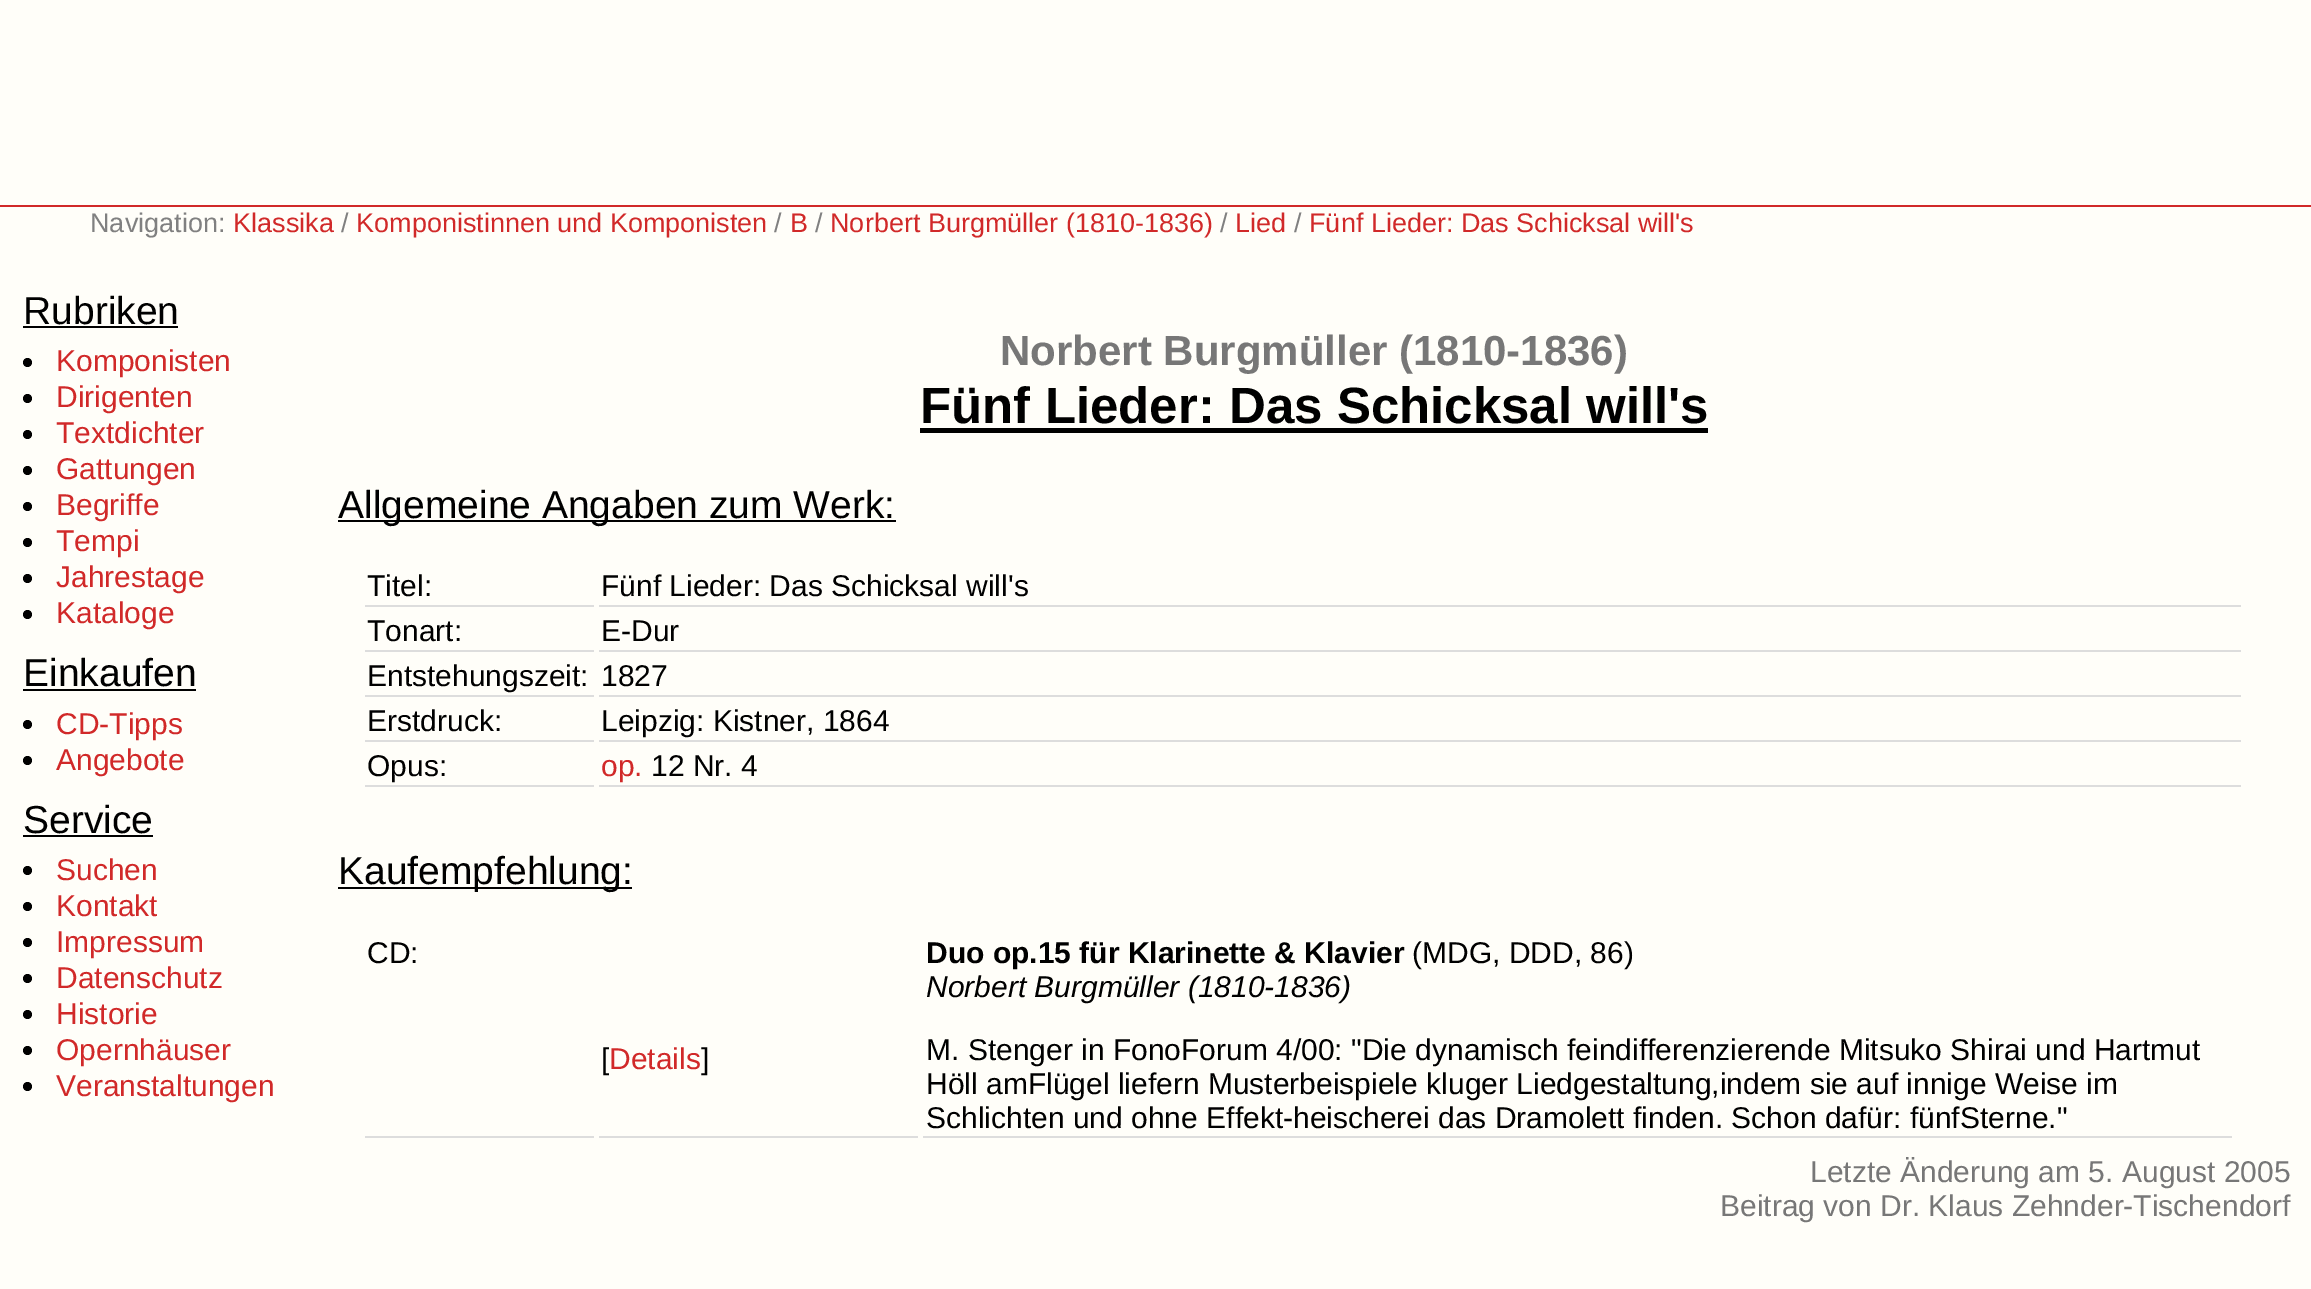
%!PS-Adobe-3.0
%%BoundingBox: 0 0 2311 1289
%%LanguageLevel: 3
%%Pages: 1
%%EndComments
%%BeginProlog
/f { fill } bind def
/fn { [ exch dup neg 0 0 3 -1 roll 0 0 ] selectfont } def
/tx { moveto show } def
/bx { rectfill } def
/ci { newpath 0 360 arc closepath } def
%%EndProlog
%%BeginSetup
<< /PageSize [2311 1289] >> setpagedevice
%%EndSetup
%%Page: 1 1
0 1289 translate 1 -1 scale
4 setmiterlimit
1 0.996 0.976 setrgbcolor
0 0 2311 1289 bx
0.82 0.161 0.161 setrgbcolor
0 205 2311 2 bx
/LiberationSans-Regular 27 fn
0.502 setgray
(Navigation:) 90 232 tx
0.82 0.161 0.161 setrgbcolor
(Klassika) 233 232 tx
0.502 setgray
(/) 341 232 tx
0.82 0.161 0.161 setrgbcolor
(Komponistinnen und Komponisten) 356 232 tx
0.502 setgray
(/) 774 232 tx
0.82 0.161 0.161 setrgbcolor
(B) 790 232 tx
0.502 setgray
(/) 815 232 tx
0.82 0.161 0.161 setrgbcolor
(Norbert Burgmüller \(1810-1836\)) 830 232 tx
0.502 setgray
(/) 1220 232 tx
0.82 0.161 0.161 setrgbcolor
(Lied) 1235 232 tx
0.502 setgray
(/) 1294 232 tx
0.82 0.161 0.161 setrgbcolor
(Fünf Lieder: Das Schicksal will's) 1309 232 tx
/LiberationSans-Regular 39 fn
0 setgray
(Rubriken) 23 324 tx
23 326 155 2 bx
27.5 362.5 4.5 ci f
/LiberationSans-Regular 30 fn
0.82 0.161 0.161 setrgbcolor
(Komponisten) 56 371 tx
0 setgray
27.5 398.5 4.5 ci f
0.82 0.161 0.161 setrgbcolor
(Dirigenten) 56 407 tx
0 setgray
27.5 434.5 4.5 ci f
0.82 0.161 0.161 setrgbcolor
(Textdichter) 56 443 tx
0 setgray
27.5 470.5 4.5 ci f
0.82 0.161 0.161 setrgbcolor
(Gattungen) 56 479 tx
0 setgray
27.5 506.5 4.5 ci f
0.82 0.161 0.161 setrgbcolor
(Begriffe) 56 515 tx
0 setgray
27.5 542.5 4.5 ci f
0.82 0.161 0.161 setrgbcolor
(Tempi) 56 551 tx
0 setgray
27.5 578.5 4.5 ci f
0.82 0.161 0.161 setrgbcolor
(Jahrestage) 56 587 tx
0 setgray
27.5 614.5 4.5 ci f
0.82 0.161 0.161 setrgbcolor
(Kataloge) 56 623 tx
/LiberationSans-Regular 39 fn
0 setgray
(Einkaufen) 23 686 tx
23 689 173 2 bx
27.5 724.5 4.5 ci f
/LiberationSans-Regular 30 fn
0.82 0.161 0.161 setrgbcolor
(CD-Tipps) 56 734 tx
0 setgray
27.5 760.5 4.5 ci f
0.82 0.161 0.161 setrgbcolor
(Angebote) 56 770 tx
/LiberationSans-Regular 39 fn
0 setgray
(Service) 23 833 tx
23 835 130 2 bx
27.5 870.5 4.5 ci f
/LiberationSans-Regular 30 fn
0.82 0.161 0.161 setrgbcolor
(Suchen) 56 880 tx
0 setgray
27.5 906.5 4.5 ci f
0.82 0.161 0.161 setrgbcolor
(Kontakt) 56 916 tx
0 setgray
27.5 942.5 4.5 ci f
0.82 0.161 0.161 setrgbcolor
(Impressum) 56 952 tx
0 setgray
27.5 978.5 4.5 ci f
0.82 0.161 0.161 setrgbcolor
(Datenschutz) 56 988 tx
0 setgray
27.5 1014.5 4.5 ci f
0.82 0.161 0.161 setrgbcolor
(Historie) 56 1024 tx
0 setgray
27.5 1050.5 4.5 ci f
0.82 0.161 0.161 setrgbcolor
(Opernhäuser) 56 1060 tx
0 setgray
27.5 1086.5 4.5 ci f
0.82 0.161 0.161 setrgbcolor
(Veranstaltungen) 56 1096 tx
/LiberationSans-Bold 42 fn
0.467 setgray
(Norbert Burgmüller \(1810-1836\)) 1000 365 tx
/LiberationSans-Bold 51 fn
0 setgray
(Fünf Lieder: Das Schicksal will's) 920 423 tx
920 428 788 5 bx
338 520 558 2 bx
/LiberationSans-Regular 39 fn
(Allgemeine Angaben zum Werk:) 338 518 tx
0.867 setgray
365 605 229 2 bx
/LiberationSans-Regular 30 fn
0 setgray
(Titel:) 367 596 tx
0.867 setgray
599 605 1642 2 bx
0 setgray
(Fünf Lieder: Das Schicksal will's) 601 596 tx
0.867 setgray
365 650 229 2 bx
0 setgray
(Tonart:) 367 641 tx
0.867 setgray
599 650 1642 2 bx
0 setgray
(E-Dur) 601 641 tx
0.867 setgray
365 695 229 2 bx
0 setgray
(Entstehungszeit:) 367 686 tx
0.867 setgray
599 695 1642 2 bx
0 setgray
(1827) 601 686 tx
0.867 setgray
365 740 229 2 bx
0 setgray
(Erstdruck:) 367 731 tx
0.867 setgray
599 740 1642 2 bx
0 setgray
(Leipzig: Kistner, 1864) 601 731 tx
0.867 setgray
365 785 229 2 bx
0 setgray
(Opus:) 367 776 tx
0.867 setgray
599 785 1642 2 bx
0.82 0.161 0.161 setrgbcolor
(op.) 601 776 tx
0 setgray
(12 Nr. 4) 651 776 tx
338 887 294 2 bx
/LiberationSans-Regular 39 fn
(Kaufempfehlung:) 338 884 tx
0.867 setgray
365 1136 229 2 bx
/LiberationSans-Regular 30 fn
0 setgray
(CD:) 367 963 tx
0.867 setgray
923 1136 1309 2 bx
/LiberationSans-Bold 30 fn
0 setgray
(Duo op.15 für Klarinette & Klavier) 926 963 tx
/LiberationSans-Regular 30 fn
(\(MDG, DDD, 86\)) 1412 963 tx
/LiberationSans-Italic 30 fn
(Norbert Burgmüller \(1810-1836\)) 926 997 tx
/LiberationSans-Regular 30 fn
(M. Stenger in FonoForum 4/00: "Die dynamisch feindifferenzierende Mitsuko Shirai und Hartmut) 926 1060 tx
(Höll amFlügel liefern Musterbeispiele kluger Liedgestaltung,indem sie auf innige Weise im) 926 1094 tx
(Schlichten und ohne Effekt-heischerei das Dramolett finden. Schon dafür: fünfSterne.") 926 1128 tx
0.867 setgray
599 1136 319 2 bx
0 setgray
([) 601 1069 tx
0.82 0.161 0.161 setrgbcolor
(Details) 609 1069 tx
0 setgray
(]) 701 1069 tx
0.467 setgray
(Letzte Änderung am 5. August 2005) 1810 1182 tx
(Beitrag von Dr. Klaus Zehnder-Tischendorf) 1720 1216 tx
showpage
%%EOF
